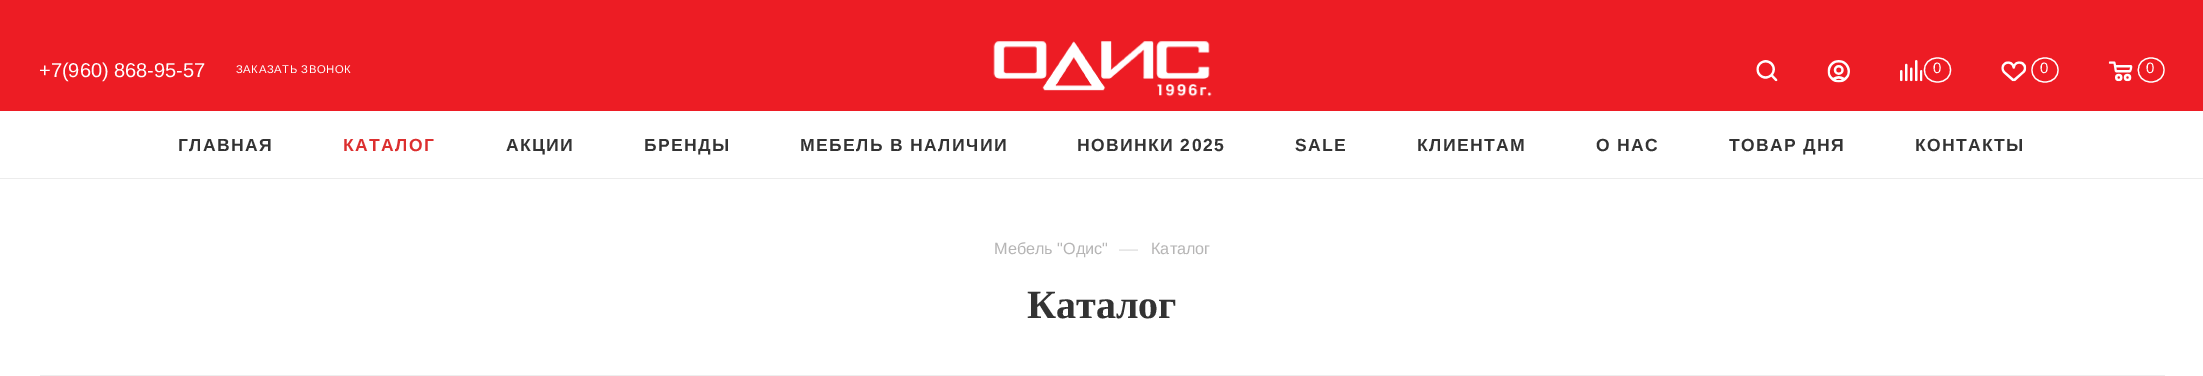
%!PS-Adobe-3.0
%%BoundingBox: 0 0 2203 376
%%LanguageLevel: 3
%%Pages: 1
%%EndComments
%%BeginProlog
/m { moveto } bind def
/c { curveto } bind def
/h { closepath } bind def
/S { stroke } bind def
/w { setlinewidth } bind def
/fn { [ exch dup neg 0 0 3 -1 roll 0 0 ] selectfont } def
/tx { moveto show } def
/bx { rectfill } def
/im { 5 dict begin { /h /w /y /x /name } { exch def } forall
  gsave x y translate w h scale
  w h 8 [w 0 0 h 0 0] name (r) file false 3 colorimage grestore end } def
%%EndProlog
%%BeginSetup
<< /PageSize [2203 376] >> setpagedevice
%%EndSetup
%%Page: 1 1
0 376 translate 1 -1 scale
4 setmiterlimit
1 setgray
0 0 2203 376 bx
0.929 0.11 0.141 setrgbcolor
0 0 2203 111 bx
/LiberationSans-Regular 20 fn
1 setgray
(+7\(960\) 868-95-57) 39 77 tx
/LiberationSans-Regular 11.25 fn
236 73 m 0.6 0 (ЗАКАЗАТЬ ЗВОНОК) ashow
(image0.raw) 993 41 219 56 im
(image1.raw) 1756 60 22 22 im
(image2.raw) 1827 60 23 23 im
(image3.raw) 1900 60 23 22 im
1.2 w
1937.5 58 m 1955 58 1955 82 1937.5 82 c 1920 82 1920 58 1937.5 58 c h S
/LiberationSans-Regular 15 fn
(0) 1933 73 tx
(image4.raw) 2001 61 26 21 im
2045 58 m 2062.5 58 2062.5 82 2045 82 c 2027.5 82 2027.5 58 2045 58 c h S
(0) 2040 73 tx
(image5.raw) 2108 61 25 21 im
2151 58 m 2168.5 58 2168.5 82 2151 82 c 2134 82 2134 58 2151 58 c h S
(0) 2146 73 tx
0.925 setgray
0 178 2203 1 bx
/LiberationSans-Bold 17.5 fn
0.2 setgray
178 151 m 1.4 0 (ГЛАВНАЯ) ashow
0.863 0.184 0.184 setrgbcolor
343 151 m 1.4 0 (КАТАЛОГ) ashow
0.2 setgray
506 151 m 1.4 0 (АКЦИИ) ashow
644 151 m 1.4 0 (БРЕНДЫ) ashow
800 151 m 1.4 0 (МЕБЕЛЬ В НАЛИЧИИ) ashow
1077 151 m 1.4 0 (НОВИНКИ 2025) ashow
1295 151 m 1.4 0 (SALE) ashow
1417 151 m 1.4 0 (КЛИЕНТАМ) ashow
1596 151 m 1.4 0 (О НАС) ashow
1729 151 m 1.4 0 (ТОВАР ДНЯ) ashow
1915 151 m 1.4 0 (КОНТАКТЫ) ashow
/LiberationSans-Regular 16.25 fn
0.714 0.71 0.71 setrgbcolor
(Мебель "Одис") 994 254 tx
/LiberationSans-Regular 19 fn
0.867 setgray
(—) 1119 255 tx
/LiberationSans-Regular 16.25 fn
0.714 0.71 0.71 setrgbcolor
(Каталог) 1151 254 tx
/LiberationSerif-Bold 40 fn
0.2 setgray
(Каталог) 1027 318 tx
0.933 setgray
40 375 2125 1 bx
showpage
%%EOF
